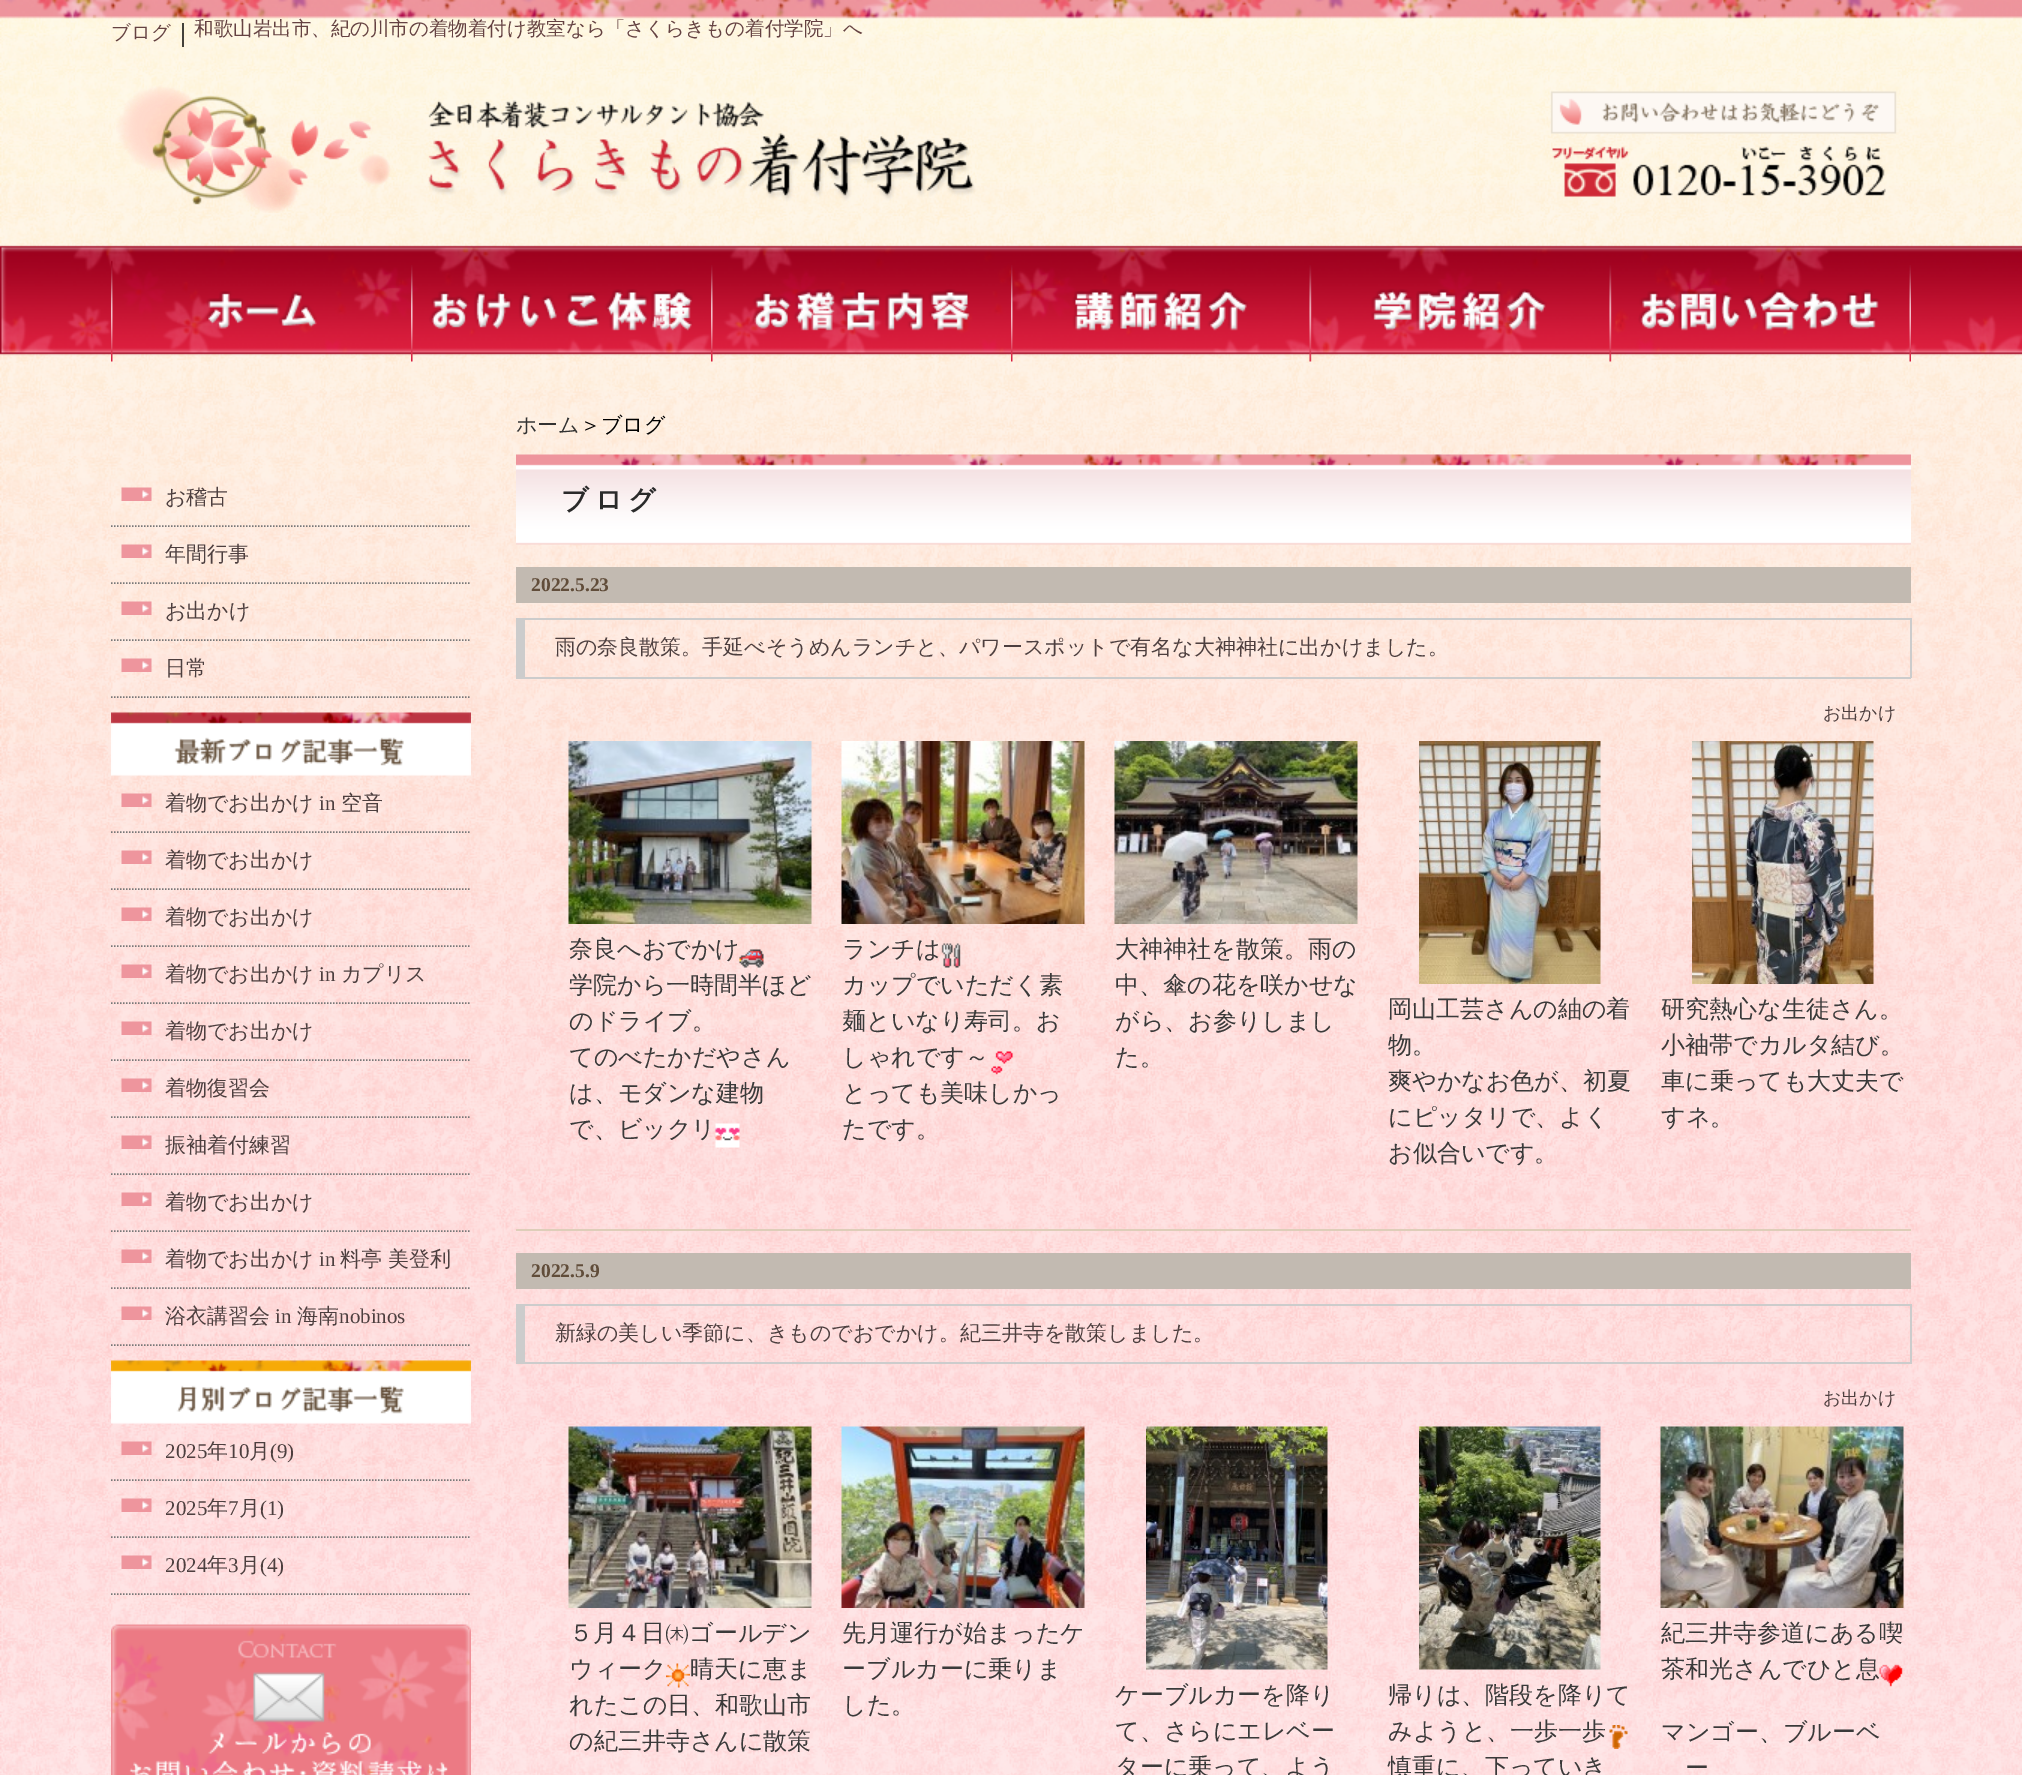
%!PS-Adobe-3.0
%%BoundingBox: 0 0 2022 1775
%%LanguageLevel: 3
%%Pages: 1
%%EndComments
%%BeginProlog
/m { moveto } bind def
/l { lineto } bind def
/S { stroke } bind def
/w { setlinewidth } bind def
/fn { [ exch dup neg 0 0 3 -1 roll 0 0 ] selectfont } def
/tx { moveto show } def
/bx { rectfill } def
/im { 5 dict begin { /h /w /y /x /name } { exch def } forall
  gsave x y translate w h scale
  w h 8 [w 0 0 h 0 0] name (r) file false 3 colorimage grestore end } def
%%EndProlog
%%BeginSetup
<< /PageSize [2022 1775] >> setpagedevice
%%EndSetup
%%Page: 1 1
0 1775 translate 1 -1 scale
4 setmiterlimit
1 setgray
0 0 2022 1775 bx
(image0.raw) 0 0 2022 1775 im
/WenQuanYiZenHei-Medium 19.5 fn
0.396 0.259 0.259 setrgbcolor
(ブログ) 111 39 tx
/WenQuanYiZenHei-Medium 24 fn
0 setgray
(｜) 171 41 tx
/WenQuanYiZenHei-Medium 19.5 fn
0.396 0.259 0.259 setrgbcolor
(和歌山岩出市、紀の川市の着物着付け教室なら「さくらきもの着付学院」へ) 194 35 tx
(image1.raw) 116 85 1781 128 im
(image2.raw) 111 260 206 102 im
(image3.raw) 411 265 282 97 im
(image4.raw) 711 265 259 97 im
(image5.raw) 1011 265 237 97 im
(image6.raw) 1309 265 238 97 im
(image7.raw) 1609 265 302 97 im
(image8.raw) 121 487 31 14 im
0.471 setgray
1.5 w
[1.5 1.5] 0 setdash
111 526 m 471 526 l S
/WenQuanYiZenHei-Medium 21 fn
0.302 0.247 0.247 setrgbcolor
(お稽古) 165 504 tx
(image9.raw) 121 544 31 14 im
0.471 setgray
111 583 m 471 583 l S
0.302 0.247 0.247 setrgbcolor
(年間行事) 165 561 tx
(image10.raw) 121 601 31 14 im
0.471 setgray
111 640 m 471 640 l S
0.302 0.247 0.247 setrgbcolor
(お出かけ) 165 618 tx
(image11.raw) 121 658 31 14 im
0.471 setgray
111 697 m 471 697 l S
0.302 0.247 0.247 setrgbcolor
(日常) 165 675 tx
(image12.raw) 111 712 360 64 im
(image13.raw) 121 793 31 14 im
0.471 setgray
111 832 m 471 832 l S
0.302 0.247 0.247 setrgbcolor
(着物でお出かけ) 165 810 tx
/LiberationSerif-Regular 21 fn
(in) 319 810 tx
/WenQuanYiZenHei-Medium 21 fn
(空音) 341 810 tx
(image14.raw) 121 850 31 14 im
0.471 setgray
111 889 m 471 889 l S
0.302 0.247 0.247 setrgbcolor
(着物でお出かけ) 165 867 tx
(image15.raw) 121 907 31 14 im
0.471 setgray
111 946 m 471 946 l S
0.302 0.247 0.247 setrgbcolor
(着物でお出かけ) 165 924 tx
(image16.raw) 121 964 31 14 im
0.471 setgray
111 1003 m 471 1003 l S
0.302 0.247 0.247 setrgbcolor
(着物でお出かけ) 165 981 tx
/LiberationSerif-Regular 21 fn
(in) 319 981 tx
/WenQuanYiZenHei-Medium 21 fn
(カプリス) 341 981 tx
(image17.raw) 121 1021 31 14 im
0.471 setgray
111 1060 m 471 1060 l S
0.302 0.247 0.247 setrgbcolor
(着物でお出かけ) 165 1038 tx
(image18.raw) 121 1078 31 14 im
0.471 setgray
111 1117 m 471 1117 l S
0.302 0.247 0.247 setrgbcolor
(着物復習会) 165 1095 tx
(image19.raw) 121 1135 31 14 im
0.471 setgray
111 1174 m 471 1174 l S
0.302 0.247 0.247 setrgbcolor
(振袖着付練習) 165 1152 tx
(image20.raw) 121 1192 31 14 im
0.471 setgray
111 1231 m 471 1231 l S
0.302 0.247 0.247 setrgbcolor
(着物でお出かけ) 165 1209 tx
(image21.raw) 121 1249 31 14 im
0.471 setgray
111 1288 m 471 1288 l S
0.302 0.247 0.247 setrgbcolor
(着物でお出かけ) 165 1266 tx
/LiberationSerif-Regular 21 fn
(in) 319 1266 tx
/WenQuanYiZenHei-Medium 21 fn
(料亭 美登利) 340 1266 tx
(image22.raw) 121 1306 31 14 im
0.471 setgray
111 1345 m 471 1345 l S
0.302 0.247 0.247 setrgbcolor
(浴衣講習会) 165 1323 tx
/LiberationSerif-Regular 21 fn
(in) 275 1323 tx
/WenQuanYiZenHei-Medium 21 fn
(海南) 297 1323 tx
/LiberationSerif-Regular 21 fn
(nobinos) 339 1323 tx
(image23.raw) 111 1360 360 64 im
(image24.raw) 121 1441 31 14 im
0.471 setgray
111 1480 m 471 1480 l S
0.302 0.247 0.247 setrgbcolor
(2025) 165 1458 tx
/WenQuanYiZenHei-Medium 21 fn
(年) 207 1458 tx
/LiberationSerif-Regular 21 fn
(10) 228 1458 tx
/WenQuanYiZenHei-Medium 21 fn
(月) 249 1458 tx
/LiberationSerif-Regular 21 fn
(\(9\)) 270 1458 tx
(image25.raw) 121 1498 31 14 im
0.471 setgray
111 1537 m 471 1537 l S
0.302 0.247 0.247 setrgbcolor
(2025) 165 1515 tx
/WenQuanYiZenHei-Medium 21 fn
(年) 207 1515 tx
/LiberationSerif-Regular 21 fn
(7) 228 1515 tx
/WenQuanYiZenHei-Medium 21 fn
(月) 239 1515 tx
/LiberationSerif-Regular 21 fn
(\(1\)) 260 1515 tx
(image26.raw) 121 1555 31 14 im
0.471 setgray
111 1594 m 471 1594 l S
0.302 0.247 0.247 setrgbcolor
(2024) 165 1572 tx
/WenQuanYiZenHei-Medium 21 fn
(年) 207 1572 tx
/LiberationSerif-Regular 21 fn
(3) 228 1572 tx
/WenQuanYiZenHei-Medium 21 fn
(月) 239 1572 tx
/LiberationSerif-Regular 21 fn
(\(4\)) 260 1572 tx
(image27.raw) 111 1624 360 151 im
/WenQuanYiZenHei-Medium 21 fn
0.2 setgray
(ホーム) 516 432 tx
0 setgray
(＞ブログ) 580 432 tx
(image28.raw) 516 454 1395 91 im
/WenQuanYiZenHei-Bold 27 fn
0.165 setgray
561 509 m 6 0 (ブログ) ashow
0.871 0.808 0.725 setrgbcolor
516 1229 1395 2 bx
0.761 0.729 0.694 setrgbcolor
516 567 1395 36 bx
/LiberationSerif-Bold 19.5 fn
0.38 0.302 0.227 setrgbcolor
(2022.5.23) 531 591 tx
0.8 setgray
525 618 1386 2 bx
1910 618 2 60 bx
516 677 1395 2 bx
516 618 9 59 bx
/WenQuanYiZenHei-Medium 21 fn
0.302 0.247 0.247 setrgbcolor
(雨の奈良散策。手延べそうめんランチと、パワースポットで有名な大神神社に出かけました。) 555 654 tx
/WenQuanYiZenHei-Medium 18 fn
(お出かけ) 1823 719 tx
(image29.raw) 568 741 244 183 im
/WenQuanYiZenHei-Medium 24 fn
0.227 setgray
(奈良へおでかけ) 569 957 tx
(image30.raw) 739 949 25 19 im
(学院から一時間半ほど) 569 993 tx
(のドライブ。) 569 1029 tx
(てのべたかだやさん) 569 1065 tx
(は、モダンな建物) 569 1101 tx
(で、ビックリ) 569 1137 tx
(image31.raw) 715 1123 25 25 im
(image32.raw) 841 741 244 183 im
(ランチは) 842 957 tx
(image33.raw) 941 943 20 25 im
(カップでいただく素) 842 993 tx
(麺といなり寿司。お) 842 1029 tx
(しゃれです～) 842 1065 tx
(image34.raw) 991 1051 22 24 im
(とっても美味しかっ) 842 1101 tx
(たです。) 842 1137 tx
(image35.raw) 1114 741 244 183 im
(大神神社を散策。雨の) 1115 957 tx
(中、傘の花を咲かせな) 1115 993 tx
(がら、お参りしまし) 1115 1029 tx
(た。) 1115 1065 tx
(image36.raw) 1419 741 182 243 im
(岡山工芸さんの紬の着) 1388 1017 tx
(物。) 1388 1053 tx
(爽やかなお色が、初夏) 1388 1089 tx
(にピッタリで、よく) 1388 1125 tx
(お似合いです。) 1388 1161 tx
(image37.raw) 1692 741 182 243 im
(研究熱心な生徒さん。) 1661 1017 tx
(小袖帯でカルタ結び。) 1661 1053 tx
(車に乗っても大丈夫で) 1661 1089 tx
(すネ。) 1661 1125 tx
0.761 0.729 0.694 setrgbcolor
516 1253 1395 36 bx
/LiberationSerif-Bold 19.5 fn
0.38 0.302 0.227 setrgbcolor
(2022.5.9) 531 1277 tx
0.8 setgray
525 1304 1386 2 bx
1910 1304 2 60 bx
525 1362 1386 2 bx
516 1304 9 60 bx
/WenQuanYiZenHei-Medium 21 fn
0.302 0.247 0.247 setrgbcolor
(新緑の美しい季節に、きものでおでかけ。紀三井寺を散策しました。) 555 1340 tx
/WenQuanYiZenHei-Medium 18 fn
(お出かけ) 1823 1404 tx
(image38.raw) 568 1426 244 182 im
/WenQuanYiZenHei-Medium 24 fn
0.227 setgray
(５月４日㈭ゴールデン) 569 1641 tx
(ウィーク) 569 1677 tx
(image39.raw) 666 1663 24 25 im
(晴天に恵ま) 690 1677 tx
(れたこの日、和歌山市) 569 1713 tx
(の紀三井寺さんに散策) 569 1749 tx
(image40.raw) 841 1426 244 182 im
(先月運行が始まったケ) 842 1641 tx
(ーブルカーに乗りま) 842 1677 tx
(した。) 842 1713 tx
(image41.raw) 1146 1426 182 244 im
(ケーブルカーを降り) 1115 1703 tx
(て、さらにエレベー) 1115 1739 tx
(ターに乗って、よう) 1115 1775 tx
(image42.raw) 1419 1426 182 244 im
(帰りは、階段を降りて) 1388 1703 tx
(みようと、一歩一歩) 1388 1739 tx
(image43.raw) 1609 1725 19 24 im
(慎重に、下っていき) 1388 1775 tx
(image44.raw) 1660 1426 244 182 im
(紀三井寺参道にある喫) 1661 1641 tx
(茶和光さんでひと息) 1661 1677 tx
(image45.raw) 1879 1664 24 23 im
(マンゴー、ブルーベ) 1661 1740 tx
(ー) 1685 1776 tx
showpage
%%EOF
